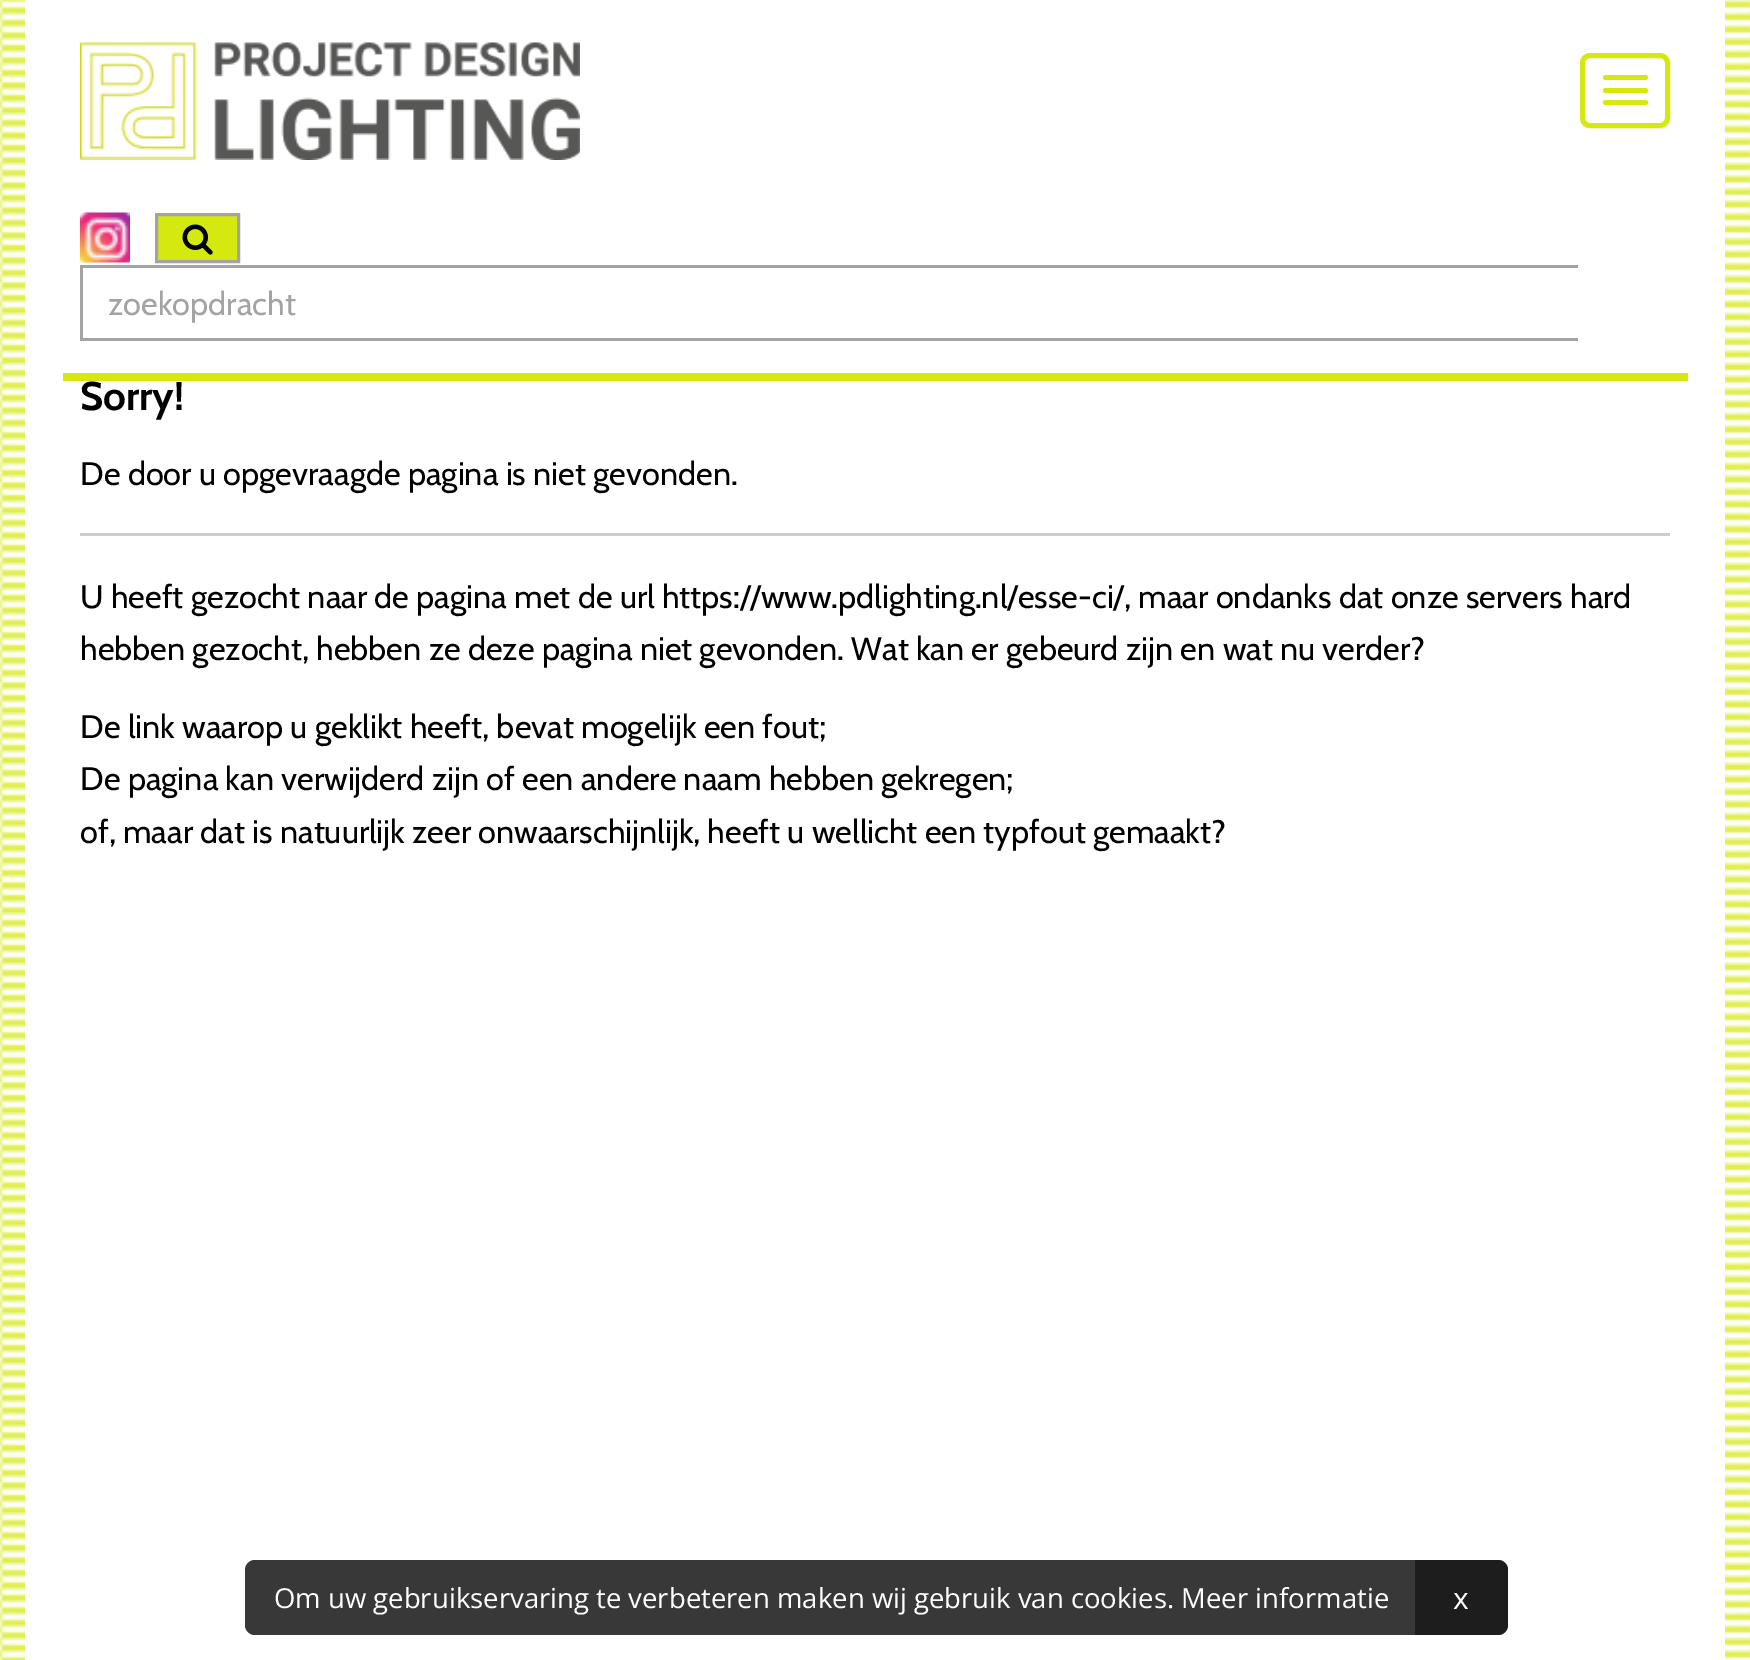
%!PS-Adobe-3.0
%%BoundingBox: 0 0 1750 1660
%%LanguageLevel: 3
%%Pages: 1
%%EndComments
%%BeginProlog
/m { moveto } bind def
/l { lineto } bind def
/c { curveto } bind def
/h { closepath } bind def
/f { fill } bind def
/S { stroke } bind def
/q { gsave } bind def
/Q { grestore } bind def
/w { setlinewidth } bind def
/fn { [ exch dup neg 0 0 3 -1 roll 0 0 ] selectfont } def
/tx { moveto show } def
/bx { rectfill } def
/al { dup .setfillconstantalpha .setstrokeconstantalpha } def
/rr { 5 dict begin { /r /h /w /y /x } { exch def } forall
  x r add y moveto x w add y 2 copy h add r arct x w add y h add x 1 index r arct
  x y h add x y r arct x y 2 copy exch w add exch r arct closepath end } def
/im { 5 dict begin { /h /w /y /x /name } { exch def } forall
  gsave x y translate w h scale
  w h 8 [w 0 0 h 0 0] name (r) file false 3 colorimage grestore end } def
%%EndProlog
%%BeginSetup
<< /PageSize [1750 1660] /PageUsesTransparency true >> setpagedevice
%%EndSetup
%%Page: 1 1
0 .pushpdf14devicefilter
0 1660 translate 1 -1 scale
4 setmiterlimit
1 setgray
0 0 1750 1660 bx
(image0.raw) 0 0 1750 1660 im
25 0 1700 1660 bx
(image1.raw) 80 42 500 118 im
0.835 0.91 0.063 setrgbcolor
5 w
1582.5 55.5 85 70 7.5 rr S
1603 75 45 5 2.5 rr f
1603 88 45 5 2.5 rr f
1603 100 45 5 2.5 rr f
(image2.raw) 80 212 50 51 im
156.5 214.5 m 238.5 214.5 l 238.5 261.5 l 156.5 261.5 l h q f Q
0.639 setgray
3 w
S
(image3.raw) 182 224 31 31 im
80 265 1498 3 bx
80 338 1498 3 bx
80 265 3 75 bx
/Cabin-Regular 32.5 fn
(zoekopdracht) 108 315 tx
0.835 0.91 0.063 setrgbcolor
63 373 1625 8 bx
/Cabin-Bold 40 fn
0 setgray
(Sorry!) 80 410 tx
/Cabin-Regular 32.5 fn
(De door u opgevraagde pagina is niet gevonden.) 80 485 tx
0.8 setgray
80 533 1590 3 bx
0 setgray
(U heeft gezocht naar de pagina met de url https://www.pdlighting.nl/esse-ci/, maar ondanks dat onze servers hard) 80 608 tx
(hebben gezocht, hebben ze deze pagina niet gevonden. Wat kan er gebeurd zijn en wat nu verder?) 80 660 tx
(De link waarop u geklikt heeft, bevat mogelijk een fout;) 80 738 tx
(De pagina kan verwijderd zijn of een andere naam hebben gekregen;) 80 790 tx
(of, maar dat is natuurlijk zeer onwaarschijnlijk, heeft u wellicht een typfout gemaakt?) 80 843 tx
0.22 setgray
245 1560 1263 75 10 rr f
/OpenSans-Regular 27.5 fn
1 setgray
(Om uw gebruikservaring te verbeteren maken wij gebruik van cookies. Meer informatie) 274 1608 tx
0.48 al
0 setgray
1415 1560 m 1498 1560 l 1503.5 1560 1508 1564.5 1508 1570 c 1508 1625 l 1508 1630.5 1503.5 1635 1498 1635 c 1415 1635 l h f
/OpenSans-Regular 30 fn
1 al
1 setgray
(x) 1453 1609 tx
.poppdf14devicefilter showpage
%%EOF
